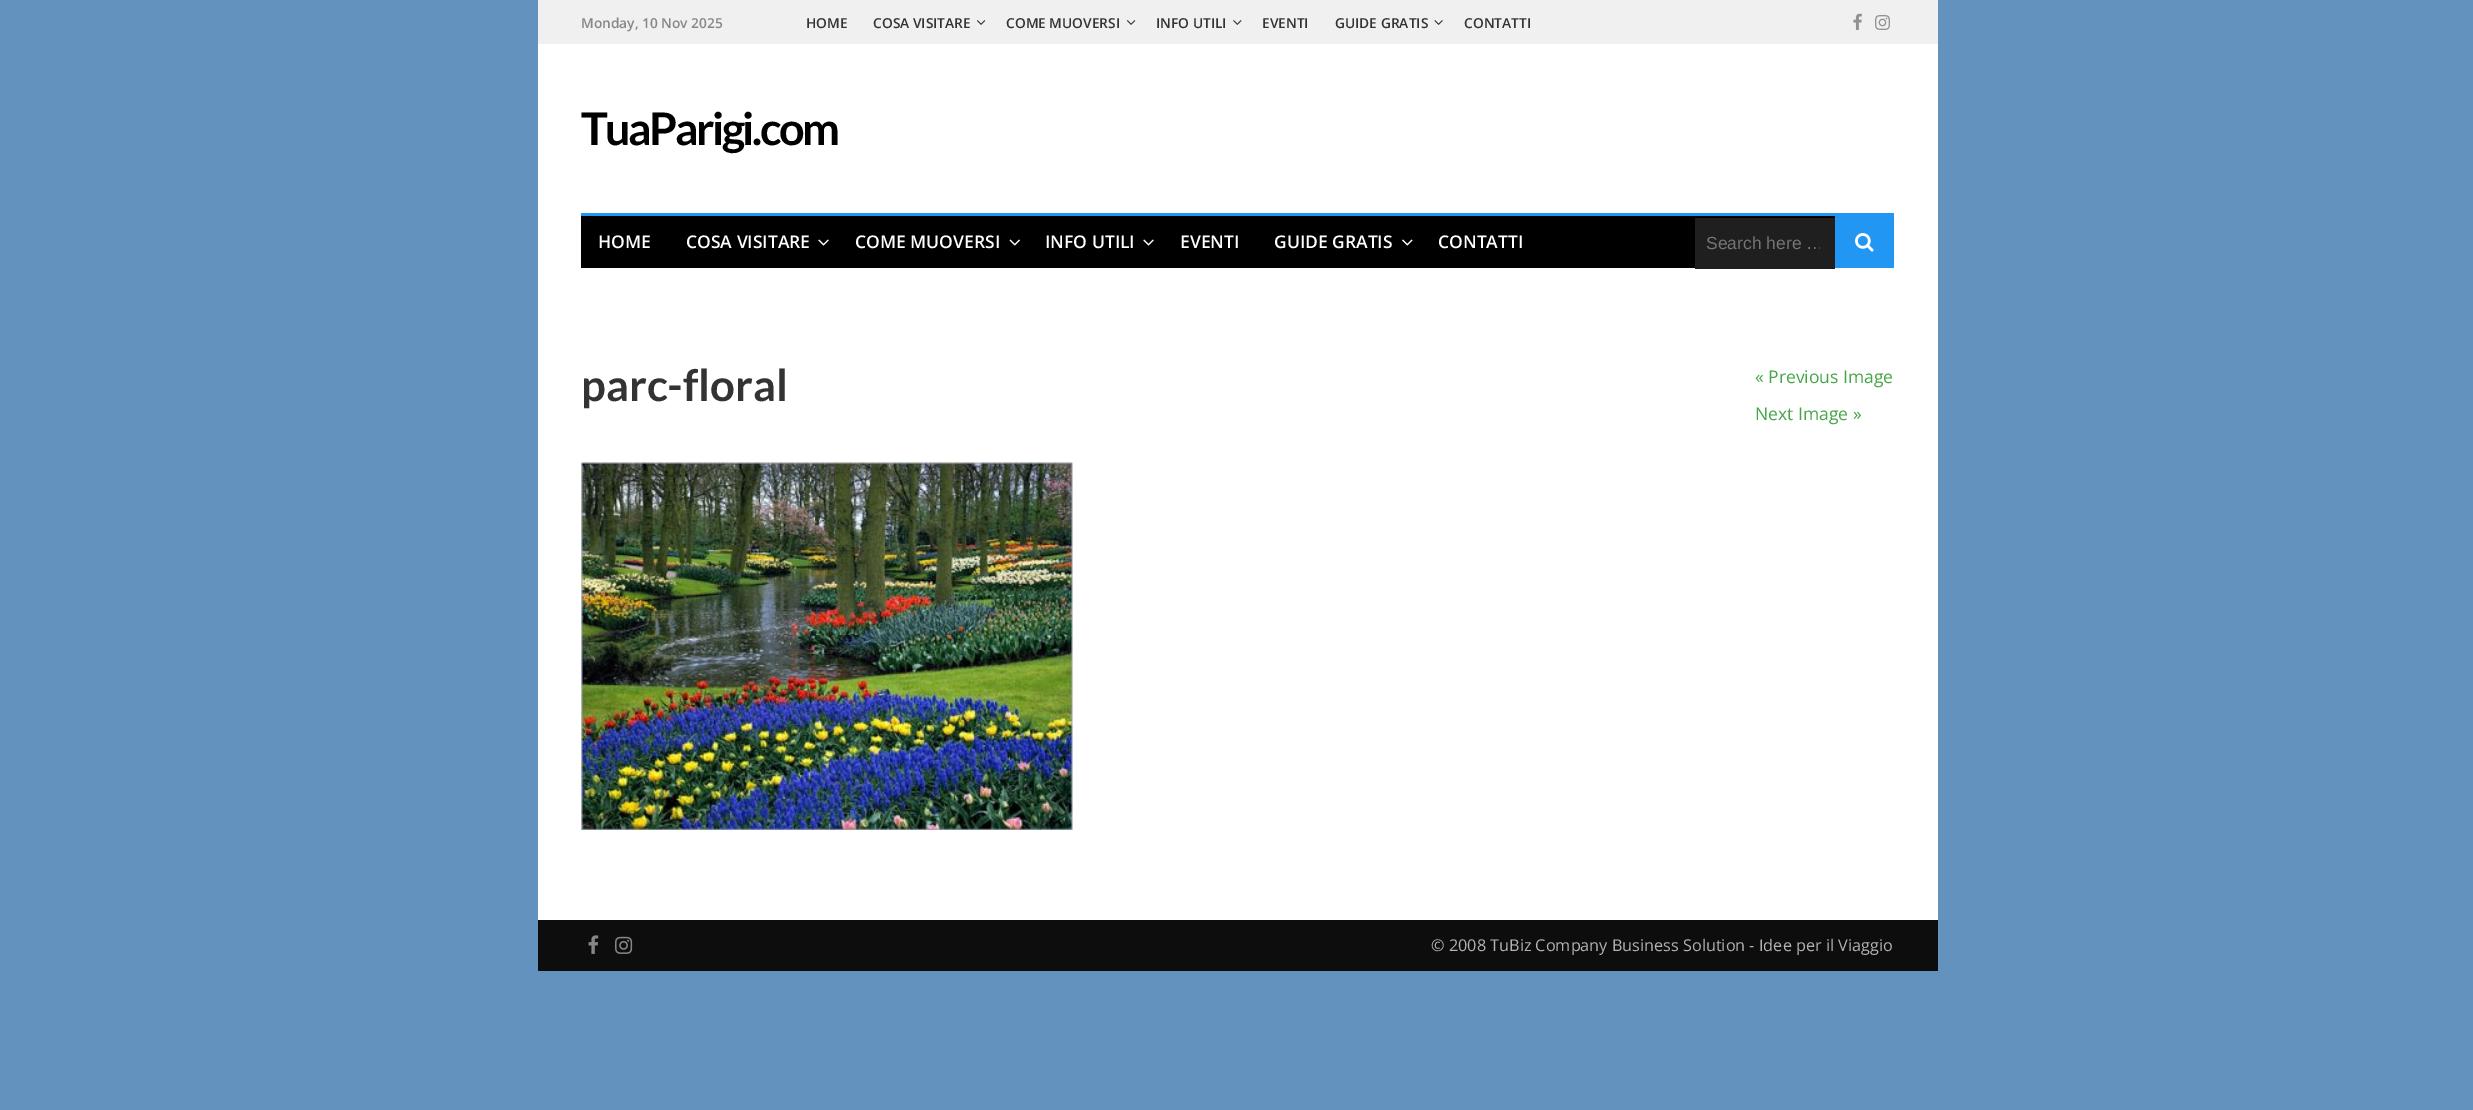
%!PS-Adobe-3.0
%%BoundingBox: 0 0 2473 1110
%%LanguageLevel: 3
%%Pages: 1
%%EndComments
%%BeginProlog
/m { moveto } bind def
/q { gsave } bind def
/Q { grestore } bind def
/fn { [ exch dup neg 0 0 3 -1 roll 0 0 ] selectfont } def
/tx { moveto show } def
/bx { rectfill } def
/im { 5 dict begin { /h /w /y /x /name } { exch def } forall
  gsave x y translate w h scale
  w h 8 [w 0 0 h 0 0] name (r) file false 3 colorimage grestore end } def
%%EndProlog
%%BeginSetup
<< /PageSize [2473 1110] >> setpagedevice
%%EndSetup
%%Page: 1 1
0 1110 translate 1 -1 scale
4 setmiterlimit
0.388 0.573 0.749 setrgbcolor
0 0 2473 1110 bx
1 setgray
538 44 1400 876 bx
0.941 setgray
538 0 1400 44 bx
/OpenSans-SemiBold 13.75 fn
0.533 setgray
(Monday, 10 Nov 2025) 581 28 tx
0.2 setgray
(HOME) 806 28 tx
(COSA VISITARE) 873 28 tx
(image0.raw) 976 20 10 5 im
(COME MUOVERSI) 1006 28 tx
(image0.raw) 1126 20 10 5 im
(INFO UTILI) 1156 28 tx
(image1.raw) 1233 20 9 5 im
(EVENTI) 1262 28 tx
(GUIDE GRATIS) 1335 28 tx
(image2.raw) 1434 20 9 5 im
(CONTATTI) 1464 28 tx
(image3.raw) 1853 13 9 17 im
(image4.raw) 1875 15 15 15 im
/Lato-Bold 45 fn
0 setgray
581 145 m -2.5 0 (TuaParigi.com) ashow
581 216 1254 52 bx
0.129 0.588 0.953 setrgbcolor
581 213 1313 3 bx
/OpenSans-SemiBold 17.5 fn
1 setgray
(HOME) 598 248 tx
(COSA VISITARE) 686 248 tx
(image5.raw) 818 239 11 7 im
(COME MUOVERSI) 855 248 tx
(image6.raw) 1009 239 11 7 im
(INFO UTILI) 1045 248 tx
(image5.raw) 1143 239 11 7 im
(EVENTI) 1180 248 tx
(GUIDE GRATIS) 1274 248 tx
(image7.raw) 1402 239 11 7 im
(CONTATTI) 1438 248 tx
0.122 setgray
1695 218 140 51 bx
q
1706 234 114 20 rectclip
/LiberationSans-Regular 17.5 fn
0.459 setgray
(Search here …) 1706 249 tx
Q
0.129 0.588 0.953 setrgbcolor
1835 216 59 52 bx
(image8.raw) 1855 233 19 19 im
/Lato-Bold 43.75 fn
0.2 setgray
(parc-floral) 581 401 tx
/OpenSans-Regular 17.5 fn
0.275 0.647 0.275 setrgbcolor
(« Previous Image) 1755 383 tx
(Next Image ») 1755 420 tx
(image9.raw) 581 462 492 368 im
0.051 setgray
538 920 1400 51 bx
(image10.raw) 588 935 11 19 im
(image11.raw) 615 936 18 18 im
/OpenSans-Regular 16.25 fn
0.702 0.698 0.698 setrgbcolor
(© 2008 TuBiz Company Business Solution - Idee per il Viaggio) 1431 951 tx
showpage
%%EOF
